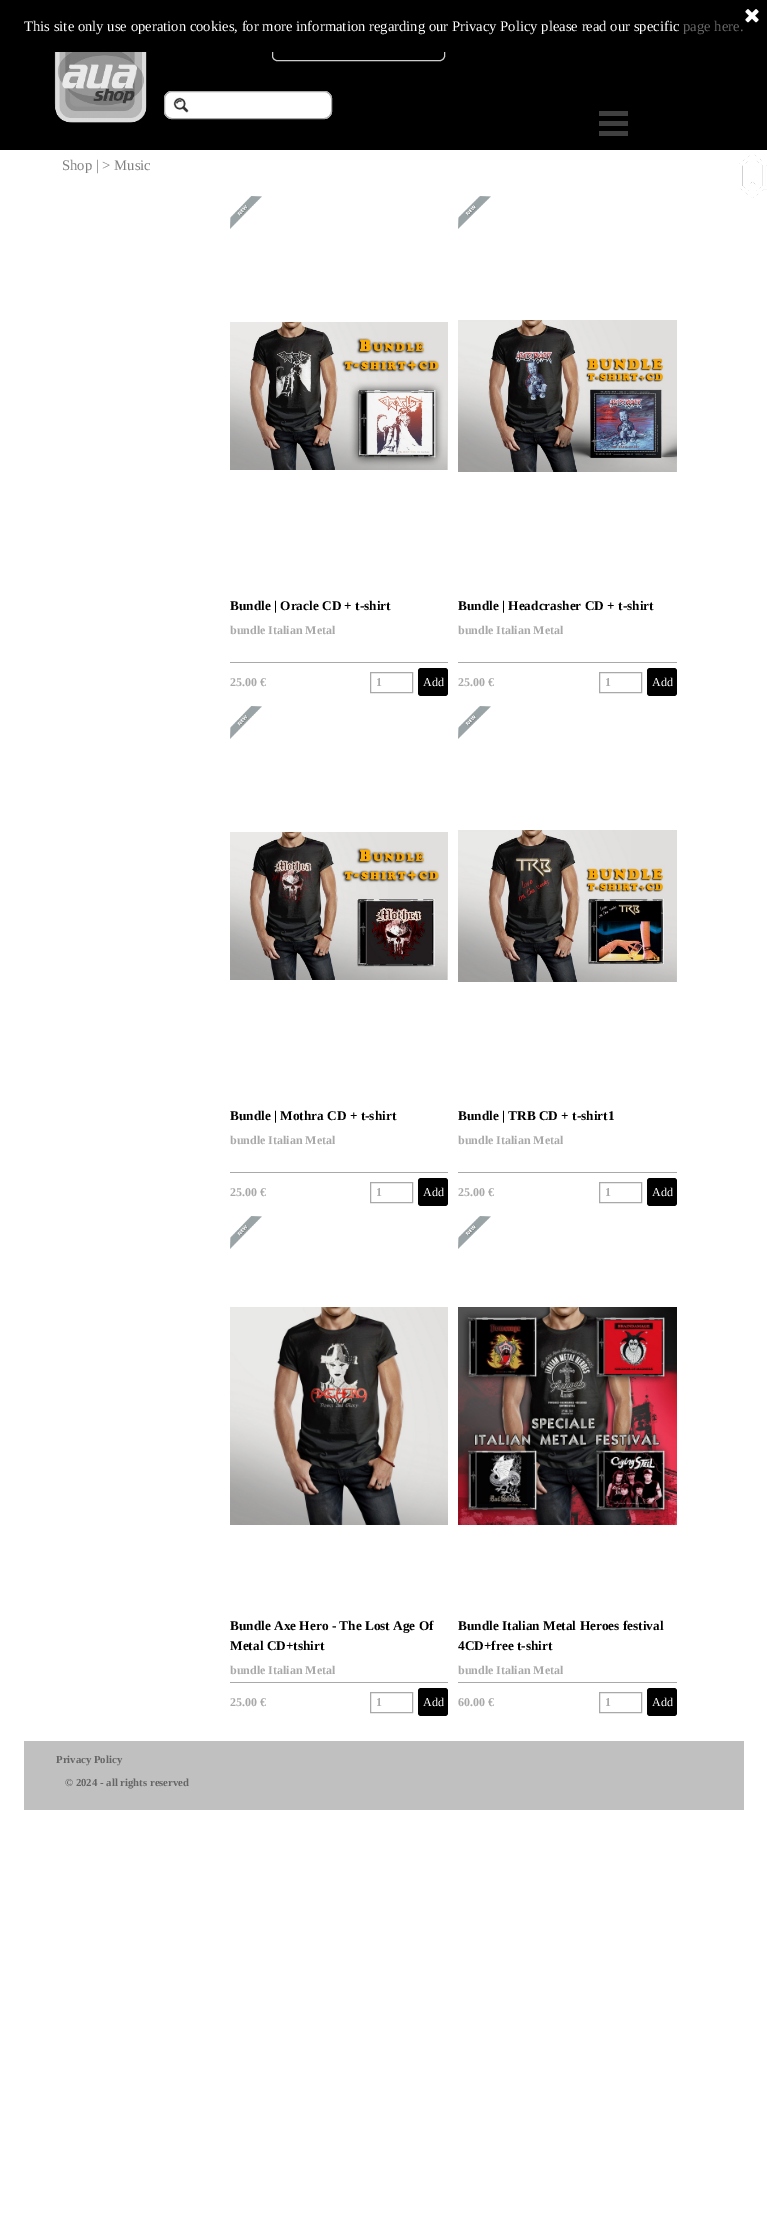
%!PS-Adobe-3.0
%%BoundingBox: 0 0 767 2219
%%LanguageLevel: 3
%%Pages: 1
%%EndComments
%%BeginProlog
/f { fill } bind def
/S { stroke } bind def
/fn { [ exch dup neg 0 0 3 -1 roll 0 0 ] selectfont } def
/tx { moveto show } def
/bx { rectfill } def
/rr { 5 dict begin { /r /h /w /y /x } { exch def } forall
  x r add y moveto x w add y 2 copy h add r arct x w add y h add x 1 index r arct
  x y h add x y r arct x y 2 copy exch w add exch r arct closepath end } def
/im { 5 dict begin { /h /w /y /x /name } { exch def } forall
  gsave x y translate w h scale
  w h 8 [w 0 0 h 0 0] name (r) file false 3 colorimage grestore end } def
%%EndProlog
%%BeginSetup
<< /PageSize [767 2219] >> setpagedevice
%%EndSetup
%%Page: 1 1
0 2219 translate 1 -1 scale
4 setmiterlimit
1 setgray
0 0 767 2219 bx
0 setgray
0 52 767 98 bx
0.8 setgray
272.5 25.5 172 35 4.5 rr S
0 setgray
0 0 767 52 bx
(image0.raw) 745 9 14 14 im
/LiberationSerif-Regular 14.65 fn
1 setgray
(This site only use operation cookies, for more information regarding our Privacy Policy please read our specific) 24 31 tx
0.4 setgray
(page here.) 683 31 tx
(image1.raw) 54 52 93 71 im
1 setgray
164 91 168 28 8 rr f
(image2.raw) 173 97 16 16 im
0.663 setgray
164.5 91.5 167 27 7.5 rr S
0.251 setgray
599 111 29 5 bx
599 121 29 5 bx
599 131 29 5 bx
(image3.raw) 739 154 28 44 im
0.502 setgray
(Shop | > Music) 62 170 tx
(image4.raw) 230 196 32 33 im
(image5.raw) 230 322 218 148 im
/LiberationSerif-Bold 13.3 fn
0 setgray
(Bundle | Oracle CD + t-shirt) 230 610 tx
/LiberationSerif-Bold 12 fn
0.663 setgray
(bundle Italian Metal) 230 634 tx
230 662 218 1 bx
(25.00 €) 230 686 tx
370.5 672.5 42 20 rectstroke
(1) 376 686 tx
0 setgray
418 668 30 28 3 rr f
/LiberationSerif-Regular 12 fn
1 setgray
(Add) 423 686 tx
(image6.raw) 458 196 33 33 im
(image7.raw) 458 320 219 152 im
/LiberationSerif-Bold 13.3 fn
0 setgray
(Bundle | Headcrasher CD + t-shirt) 458 610 tx
/LiberationSerif-Bold 12 fn
0.663 setgray
(bundle Italian Metal) 458 634 tx
458 662 219 1 bx
(25.00 €) 458 686 tx
599.5 672.5 42 20 rectstroke
(1) 605 686 tx
0 setgray
647 668 30 28 3 rr f
/LiberationSerif-Regular 12 fn
1 setgray
(Add) 652 686 tx
(image4.raw) 230 706 32 33 im
(image8.raw) 230 832 218 148 im
/LiberationSerif-Bold 13.3 fn
0 setgray
(Bundle | Mothra CD + t-shirt) 230 1120 tx
/LiberationSerif-Bold 12 fn
0.663 setgray
(bundle Italian Metal) 230 1144 tx
230 1172 218 1 bx
(25.00 €) 230 1196 tx
370.5 1182.5 42 20 rectstroke
(1) 376 1196 tx
0 setgray
418 1178 30 28 3 rr f
/LiberationSerif-Regular 12 fn
1 setgray
(Add) 423 1196 tx
(image6.raw) 458 706 33 33 im
(image9.raw) 458 830 219 152 im
/LiberationSerif-Bold 13.3 fn
0 setgray
(Bundle | TRB CD + t-shirt1) 458 1120 tx
/LiberationSerif-Bold 12 fn
0.663 setgray
(bundle Italian Metal) 458 1144 tx
458 1172 219 1 bx
(25.00 €) 458 1196 tx
599.5 1182.5 42 20 rectstroke
(1) 605 1196 tx
0 setgray
647 1178 30 28 3 rr f
/LiberationSerif-Regular 12 fn
1 setgray
(Add) 652 1196 tx
(image4.raw) 230 1216 32 33 im
(image10.raw) 230 1307 218 218 im
/LiberationSerif-Bold 13.3 fn
0 setgray
(Bundle Axe Hero - The Lost Age Of) 230 1630 tx
(Metal CD+tshirt) 230 1650 tx
/LiberationSerif-Bold 12 fn
0.663 setgray
(bundle Italian Metal) 230 1674 tx
230 1682 218 1 bx
(25.00 €) 230 1706 tx
370.5 1692.5 42 20 rectstroke
(1) 376 1706 tx
0 setgray
418 1688 30 28 3 rr f
/LiberationSerif-Regular 12 fn
1 setgray
(Add) 423 1706 tx
(image6.raw) 458 1216 33 33 im
(image11.raw) 458 1307 219 218 im
/LiberationSerif-Bold 13.3 fn
0 setgray
(Bundle Italian Metal Heroes festival) 458 1630 tx
(4CD+free t-shirt) 458 1650 tx
/LiberationSerif-Bold 12 fn
0.663 setgray
(bundle Italian Metal) 458 1674 tx
458 1682 219 1 bx
(60.00 €) 458 1706 tx
599.5 1692.5 42 20 rectstroke
(1) 605 1706 tx
0 setgray
647 1688 30 28 3 rr f
/LiberationSerif-Regular 12 fn
1 setgray
(Add) 652 1706 tx
0.753 setgray
24 1741 720 69 bx
/LiberationSerif-Bold 10.75 fn
0.4 setgray
(Privacy Policy) 56 1763 tx
(© 2024 - all rights reserved) 65 1786 tx
showpage
%%EOF
